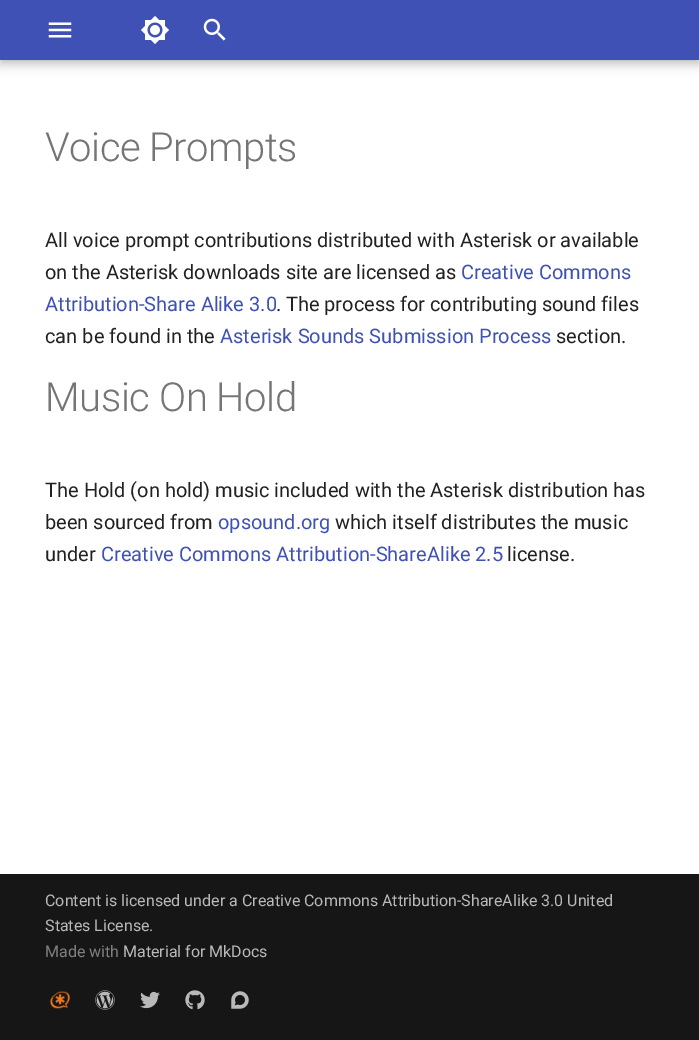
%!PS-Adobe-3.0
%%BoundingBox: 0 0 699 1040
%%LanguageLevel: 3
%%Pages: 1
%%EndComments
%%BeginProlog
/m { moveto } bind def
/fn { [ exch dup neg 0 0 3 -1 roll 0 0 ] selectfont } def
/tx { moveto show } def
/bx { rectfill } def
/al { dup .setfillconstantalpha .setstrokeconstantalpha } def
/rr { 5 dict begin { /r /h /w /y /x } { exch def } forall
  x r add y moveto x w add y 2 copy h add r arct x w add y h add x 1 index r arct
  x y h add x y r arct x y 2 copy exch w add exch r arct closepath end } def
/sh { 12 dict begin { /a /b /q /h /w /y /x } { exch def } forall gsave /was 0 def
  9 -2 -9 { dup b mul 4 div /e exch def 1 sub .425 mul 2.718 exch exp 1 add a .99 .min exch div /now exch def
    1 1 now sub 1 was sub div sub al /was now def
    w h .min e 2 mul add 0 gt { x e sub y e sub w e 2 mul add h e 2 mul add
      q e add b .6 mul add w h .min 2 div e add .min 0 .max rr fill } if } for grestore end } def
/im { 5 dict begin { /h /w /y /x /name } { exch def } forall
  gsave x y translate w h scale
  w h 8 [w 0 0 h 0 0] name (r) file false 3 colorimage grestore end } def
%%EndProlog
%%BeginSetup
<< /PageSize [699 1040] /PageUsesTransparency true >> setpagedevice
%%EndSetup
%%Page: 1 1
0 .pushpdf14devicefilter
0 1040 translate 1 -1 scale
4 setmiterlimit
1 setgray
0 0 699 1040 bx
0 setgray
0 5 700 60 0 5 0.2 sh
0 0 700 60 0 2.5 0.1 sh
0.251 0.318 0.71 setrgbcolor
0 0 699 60 bx
(image0.raw) 48 22 24 16 im
(image1.raw) 141 16 28 28 im
(image2.raw) 203 18 23 23 im
/Roboto-Light 40 fn
0.459 setgray
45 161 m -1 0 32 -0.4 0 (Voice Prompts) awidthshow
/Roboto-Regular 20 fn
0.129 setgray
(All voice prompt contributions distributed with Asterisk or available) 45 247 tx
(on the Asterisk downloads site are licensed as) 45 279 tx
0.251 0.318 0.71 setrgbcolor
(Creative Commons) 461 279 tx
(Attribution-Share Alike 3.0) 45 311 tx
0.129 setgray
276 311 m -0.25 0 32 (. The process for contributing sound files) widthshow
(can be found in the) 45 343 tx
0.251 0.318 0.71 setrgbcolor
(Asterisk Sounds Submission Process) 220 343 tx
0.129 setgray
(section.) 556 343 tx
/Roboto-Light 40 fn
0.459 setgray
45 411 m -0.4 0 (Music On Hold) ashow
/Roboto-Regular 20 fn
0.129 setgray
(The Hold \(on hold\) music included with the Asterisk distribution has) 45 497 tx
(been sourced from) 45 529 tx
0.251 0.318 0.71 setrgbcolor
(opsound.org) 218 529 tx
0.129 setgray
(which itself distributes the music) 335 529 tx
(under) 45 561 tx
0.251 0.318 0.71 setrgbcolor
(Creative Commons Attribution-ShareAlike 2.5) 101 561 tx
0.129 setgray
(license.) 507 561 tx
0.086 setgray
0 874 699 166 bx
/Roboto-Regular 16 fn
0.725 setgray
(Content is licensed under a Creative Commons Attribution-ShareAlike 3.0 United) 45 906 tx
(States License.) 45 931 tx
0.498 setgray
(Made with) 45 957 tx
0.725 setgray
(Material for MkDocs) 123 957 tx
(image3.raw) 50 991 20 18 im
(image4.raw) 95 990 20 20 im
(image5.raw) 140 991 20 18 im
(image6.raw) 185 990 20 20 im
(image7.raw) 231 991 18 18 im
.poppdf14devicefilter showpage
%%EOF
